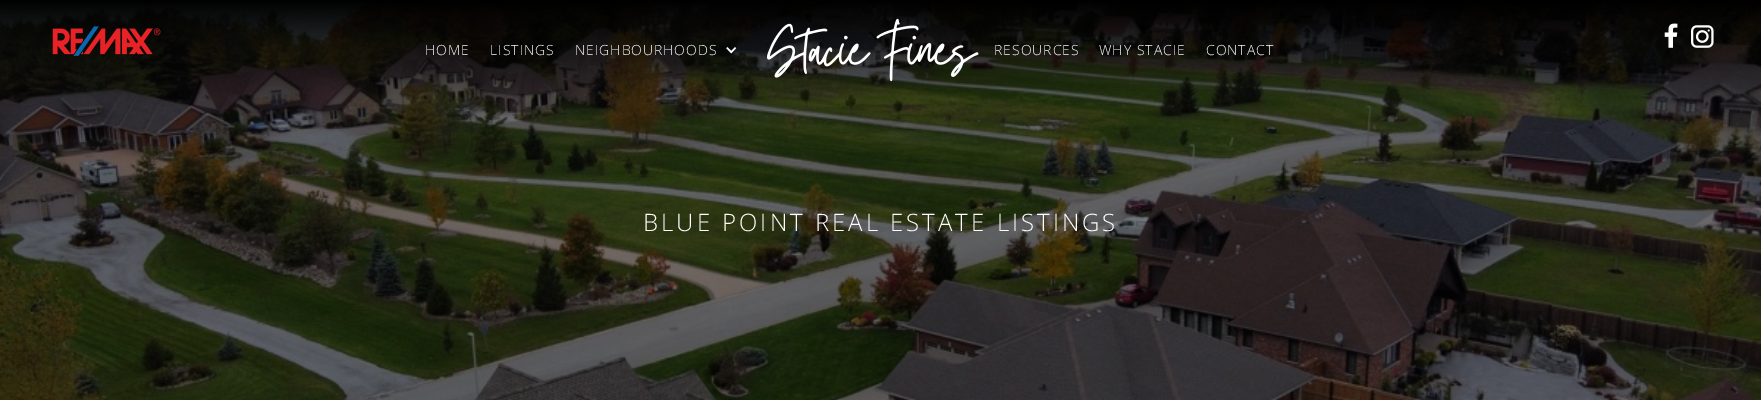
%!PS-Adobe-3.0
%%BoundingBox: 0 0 1761 412
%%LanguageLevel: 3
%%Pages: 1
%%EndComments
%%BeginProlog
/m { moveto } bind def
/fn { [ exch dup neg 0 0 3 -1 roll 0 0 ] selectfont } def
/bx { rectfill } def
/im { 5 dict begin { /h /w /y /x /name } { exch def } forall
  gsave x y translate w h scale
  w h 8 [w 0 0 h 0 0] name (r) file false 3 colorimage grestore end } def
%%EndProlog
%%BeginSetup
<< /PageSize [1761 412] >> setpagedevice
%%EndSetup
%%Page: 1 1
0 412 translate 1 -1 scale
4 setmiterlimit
1 setgray
0 0 1761 412 bx
(image0.raw) 0 0 1761 400 im
(image1.raw) 52 26 109 30 im
/OpenSans-Light 14 fn
425 55 m 1 0 (HOME) ashow
490 55 m 1 0 (LISTINGS) ashow
575 55 m 1 0 (NEIGHBOURHOODS) ashow
(image2.raw) 726 47 11 7 im
(image3.raw) 767 18 212 64 im
994 55 m 1 0 (RESOURCES) ashow
1099 55 m 1 0 (WHY STACIE) ashow
1206 55 m 1 0 (CONTACT) ashow
(image4.raw) 1664 23 14 25 im
(image5.raw) 1691 25 23 23 im
/OpenSans-Light 24 fn
643 231 m 3 0 (BLUE POINT REAL ESTATE LISTINGS) ashow
showpage
%%EOF
